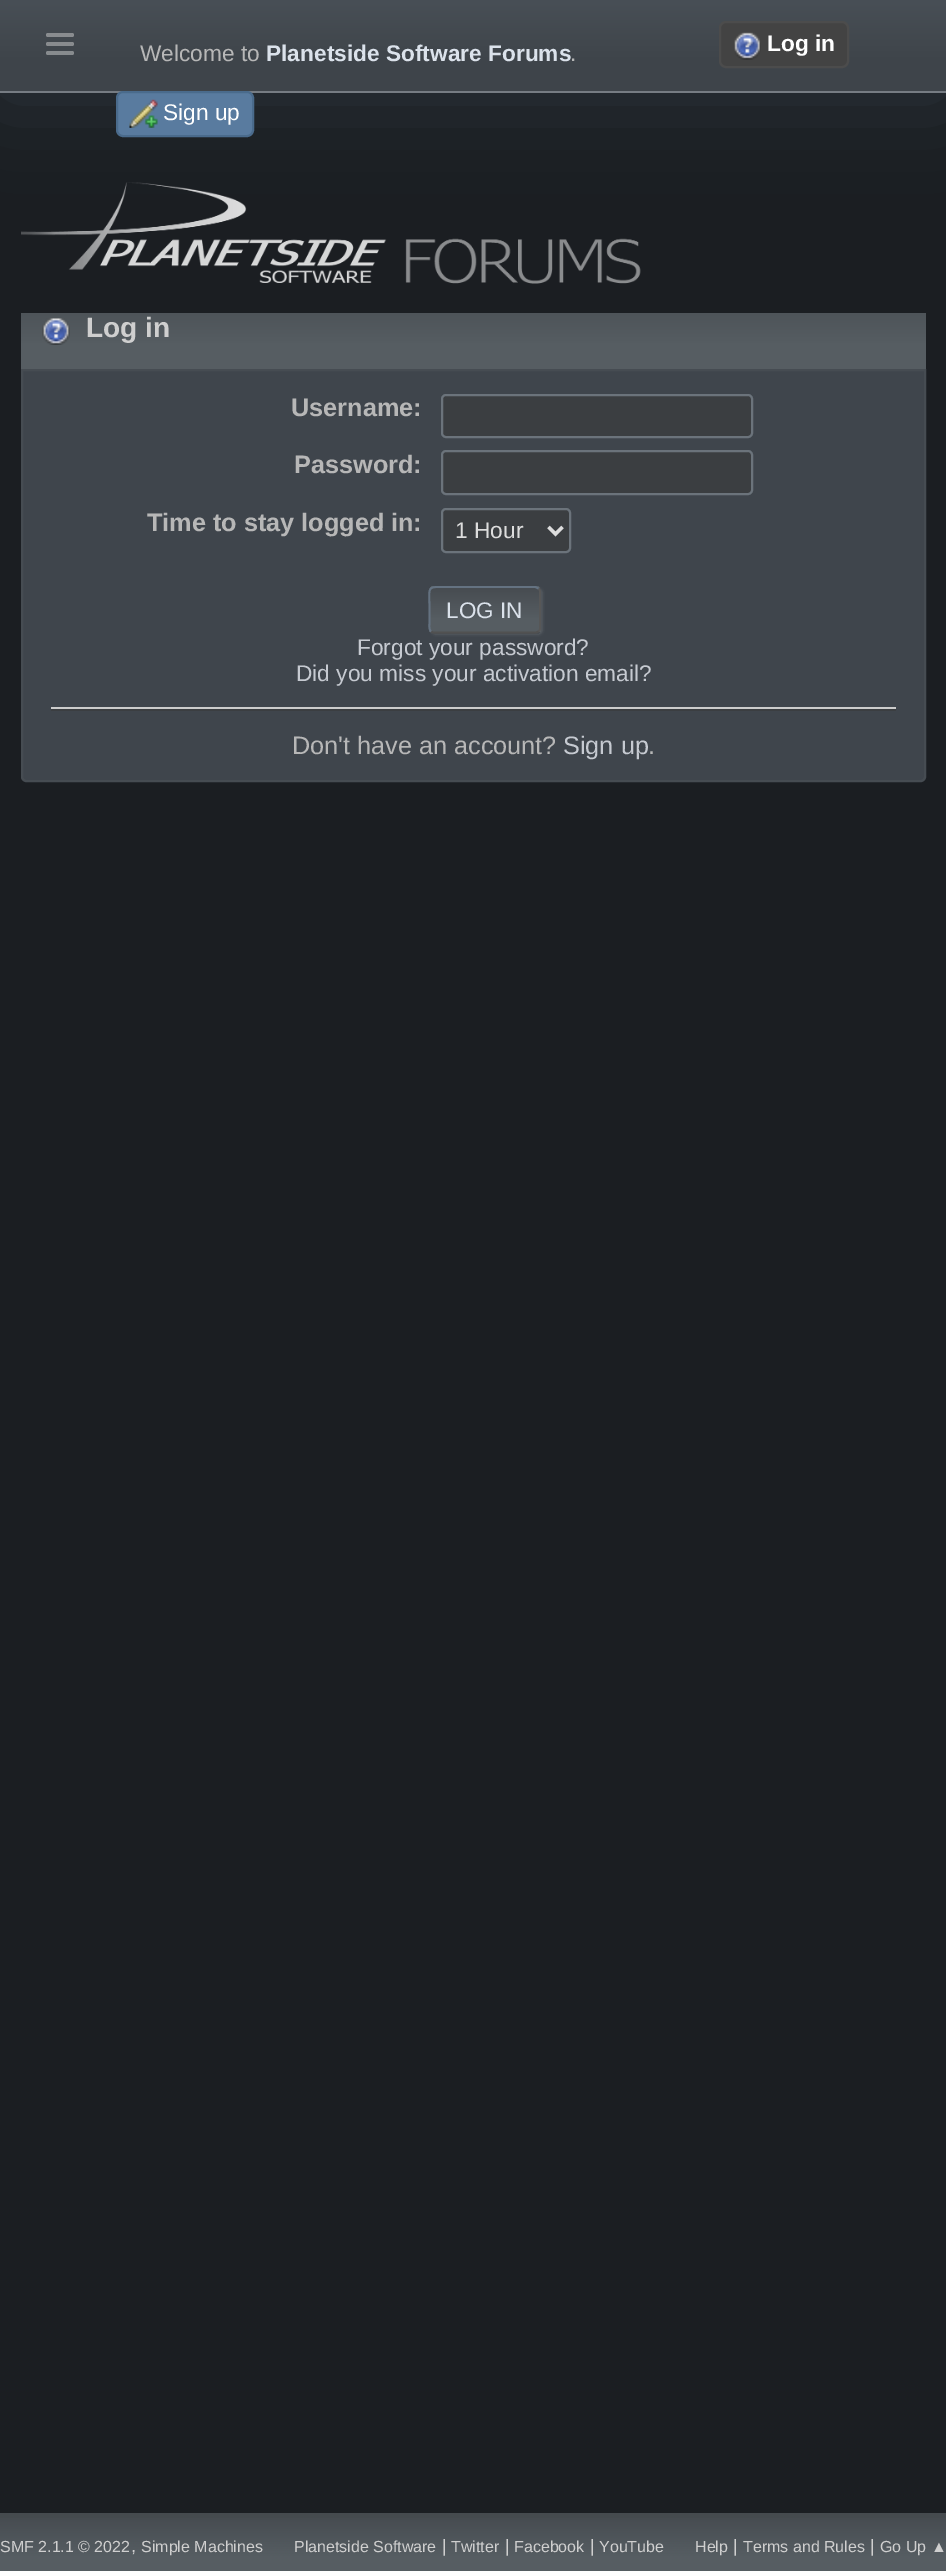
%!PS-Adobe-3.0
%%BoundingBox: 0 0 946 2571
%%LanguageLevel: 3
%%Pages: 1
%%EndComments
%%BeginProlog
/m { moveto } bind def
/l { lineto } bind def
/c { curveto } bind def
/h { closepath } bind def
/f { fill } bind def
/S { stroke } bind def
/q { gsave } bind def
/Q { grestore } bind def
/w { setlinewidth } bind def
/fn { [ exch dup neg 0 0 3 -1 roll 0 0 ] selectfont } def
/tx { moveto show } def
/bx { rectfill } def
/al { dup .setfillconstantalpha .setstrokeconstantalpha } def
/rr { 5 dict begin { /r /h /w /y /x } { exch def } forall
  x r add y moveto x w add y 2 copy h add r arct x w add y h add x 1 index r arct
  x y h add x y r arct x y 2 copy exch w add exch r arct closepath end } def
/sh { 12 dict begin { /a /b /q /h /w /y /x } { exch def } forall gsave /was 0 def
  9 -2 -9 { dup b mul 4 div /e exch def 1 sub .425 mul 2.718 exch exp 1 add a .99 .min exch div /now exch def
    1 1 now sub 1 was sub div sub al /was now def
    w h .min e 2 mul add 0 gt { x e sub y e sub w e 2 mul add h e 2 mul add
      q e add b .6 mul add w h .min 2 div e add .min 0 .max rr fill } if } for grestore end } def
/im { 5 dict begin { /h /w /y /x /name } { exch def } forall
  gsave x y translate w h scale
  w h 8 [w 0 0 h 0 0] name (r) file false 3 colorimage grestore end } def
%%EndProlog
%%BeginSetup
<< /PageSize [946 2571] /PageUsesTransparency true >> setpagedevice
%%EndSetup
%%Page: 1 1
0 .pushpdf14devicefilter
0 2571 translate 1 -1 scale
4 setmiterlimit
0.106 0.118 0.133 setrgbcolor
0 0 946 2571 bx
(image2.raw) 21 182 620 102 im
0.561 0.678 0.788 setrgbcolor
0 2 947 93 0 44 0.15 sh
q 0 0 m 946 0 l 946 91 l 0 91 l h clip newpath
<< /ShadingType 2 /ColorSpace /DeviceRGB /Coords [473 0 473 91] /Extend [true true] /Function << /FunctionType 3 /Domain [0 1] /Functions [<< /FunctionType 2 /Domain [0 1] /C0 [0.282 0.31 0.337] /C1 [0.243 0.267 0.29] /N 1 >> << /FunctionType 2 /Domain [0 1] /C0 [0.243 0.267 0.29] /C1 [0.243 0.267 0.29] /N 1 >>] /Bounds [0.7] /Encode [0 1 0 1] >> >> shfill Q
0.463 0.486 0.514 setrgbcolor
0 91 946 2 bx
0.537 0.549 0.561 setrgbcolor
46 33 28 4 2 rr f
0.529 0.545 0.557 setrgbcolor
46 51 28 4 2 rr f
0.533 0.545 0.557 setrgbcolor
46 42 28 4 2 rr f
/LiberationSans-Regular 22.7 fn
0.718 setgray
(Welcome to) 140 61 tx
/LiberationSans-Bold 22.7 fn
0.859 0.886 0.922 setrgbcolor
(Planetside Software Forums) 266 61 tx
/LiberationSans-Regular 22.7 fn
0.718 setgray
(.) 570 61 tx
0.263 setgray
720 22 128 45 6 rr q f Q
0.298 setgray
2 w
S
(image0.raw) 734 32 27 28 im
/LiberationSans-Bold 22.7 fn
1 setgray
(Log in) 767 51 tx
0.349 0.482 0.624 setrgbcolor
117 92 136 44 6 rr q f Q
0.29 0.42 0.549 setrgbcolor
S
(image1.raw) 129 99 29 29 im
/LiberationSans-Regular 22.7 fn
1 setgray
(Sign up) 163 120 tx
q 21 313 m 926 313 l 926 369 l 21 369 l h clip newpath
<< /ShadingType 2 /ColorSpace /DeviceRGB /Coords [473 287 473 369] /Extend [true true] /Function << /FunctionType 3 /Domain [0 1] /Functions [<< /FunctionType 2 /Domain [0 1] /C0 [0.278 0.298 0.318] /C1 [0.337 0.365 0.384] /N 1 >> << /FunctionType 2 /Domain [0 1] /C0 [0.337 0.365 0.384] /C1 [0.337 0.365 0.384] /N 1 >>] /Bounds [0.7] /Encode [0 1 0 1] >> >> shfill Q
(image3.raw) 42 318 28 27 im
/LiberationSans-Bold 28 fn
0.812 setgray
(Log in) 86 337 tx
0.247 0.271 0.298 setrgbcolor
22 370 m 925 370 l 925 777 l 925 779 923 781 921 781 c 26 781 l 24 781 22 779 22 777 c h q f Q
0.275 0.298 0.322 setrgbcolor
S
/LiberationSans-Bold 25.25 fn
0.718 setgray
(Username:) 291 416 tx
0.231 0.243 0.255 setrgbcolor
442 395 310 42 4 rr q f Q
0.42 0.451 0.482 setrgbcolor
S
0.718 setgray
(Password:) 294 473 tx
0.231 0.243 0.255 setrgbcolor
442 451 310 43 4 rr q f Q
0.42 0.451 0.482 setrgbcolor
S
0.718 setgray
(Time to stay logged in:) 147 531 tx
0.231 0.243 0.255 setrgbcolor
442 509 128 43 4 rr q f Q
0.42 0.451 0.482 setrgbcolor
S
0.867 setgray
3.5 w
548.5 527 m 555.5 534 l 562.5 527 l S
/LiberationSans-Regular 22.7 fn
(1 Hour) 455 538 tx
1 setgray
431 588 112 47 5 1 0.1 sh
q
429 586 112 48 5 rr clip newpath
q 429 586 m 541 586 l 541 588 l 429 588 l h clip newpath
<< /ShadingType 2 /ColorSpace /DeviceRGB /Coords [485 544 485 588] /Extend [true true] /Function << /FunctionType 3 /Domain [0 1] /Functions [<< /FunctionType 2 /Domain [0 1] /C0 [0.278 0.298 0.318] /C1 [0.337 0.365 0.384] /N 1 >> << /FunctionType 2 /Domain [0 1] /C0 [0.337 0.365 0.384] /C1 [0.337 0.365 0.384] /N 1 >>] /Bounds [0.7] /Encode [0 1 0 1] >> >> shfill Q
q 429 588 m 541 588 l 541 632 l 429 632 l h clip newpath
<< /ShadingType 2 /ColorSpace /DeviceRGB /Coords [485 588 485 632] /Extend [true true] /Function << /FunctionType 3 /Domain [0 1] /Functions [<< /FunctionType 2 /Domain [0 1] /C0 [0.278 0.298 0.318] /C1 [0.337 0.365 0.384] /N 1 >> << /FunctionType 2 /Domain [0 1] /C0 [0.337 0.365 0.384] /C1 [0.337 0.365 0.384] /N 1 >>] /Bounds [0.7] /Encode [0 1 0 1] >> >> shfill Q
q 429 632 m 541 632 l 541 634 l 429 634 l h clip newpath
<< /ShadingType 2 /ColorSpace /DeviceRGB /Coords [485 632 485 676] /Extend [true true] /Function << /FunctionType 3 /Domain [0 1] /Functions [<< /FunctionType 2 /Domain [0 1] /C0 [0.278 0.298 0.318] /C1 [0.337 0.365 0.384] /N 1 >> << /FunctionType 2 /Domain [0 1] /C0 [0.337 0.365 0.384] /C1 [0.337 0.365 0.384] /N 1 >>] /Bounds [0.7] /Encode [0 1 0 1] >> >> shfill Q
Q
0.341 setgray
1.8 w
538.5 588.5 m 539.5 589 540 590.5 540 591.5 c 540 628 l 540 629.5 539.5 630.5 538.5 631.5 c S
0.318 setgray
538.5 631.5 m 536 632.5 l 433.5 632.5 l 431 631.5 l S
0.392 0.447 0.506 setrgbcolor
431 631.5 m 428.5 629 429.5 624.5 429.5 622 c 429.5 610 l 429.5 584 425 587 451 587 c 535.5 587 l 538.5 588.5 l S
/LiberationSans-Regular 22.5 fn
0.859 0.886 0.922 setrgbcolor
(LOG IN) 446 618 tx
/LiberationSans-Regular 22.7 fn
0.776 0.792 0.82 setrgbcolor
(Forgot your password?) 357 655 tx
(Did you miss your activation email?) 296 681 tx
0.231 0.243 0.255 setrgbcolor
51 709 845 2 bx
0.8 setgray
51 707 845 2 bx
/LiberationSans-Regular 25.25 fn
0.718 setgray
(Don't have an account?) 292 754 tx
0.776 0.792 0.82 setrgbcolor
(Sign up) 563 754 tx
0.718 setgray
(.) 648 754 tx
q 0 2518 m 946 2518 l 946 2571 l 0 2571 l h clip newpath
<< /ShadingType 2 /ColorSpace /DeviceRGB /Coords [473 2518 473 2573] /Extend [true true] /Function << /FunctionType 3 /Domain [0 1] /Functions [<< /FunctionType 2 /Domain [0 1] /C0 [0.278 0.298 0.318] /C1 [0.337 0.365 0.384] /N 1 >> << /FunctionType 2 /Domain [0 1] /C0 [0.337 0.365 0.384] /C1 [0.337 0.365 0.384] /N 1 >>] /Bounds [0.7] /Encode [0 1 0 1] >> >> shfill Q
0.271 0.29 0.306 setrgbcolor
0 2513 946 5 bx
/LiberationSans-Regular 16 fn
0.812 setgray
(SMF 2.1.1 © 2022) 0 2552 tx
/LiberationSans-Regular 18 fn
(,) 131 2552 tx
/LiberationSans-Regular 16 fn
(Simple Machines) 141 2552 tx
(Planetside Software) 294 2552 tx
/LiberationSans-Regular 18 fn
(|) 442 2552 tx
/LiberationSans-Regular 16 fn
(Twitter) 451 2552 tx
/LiberationSans-Regular 18 fn
(|) 505 2552 tx
/LiberationSans-Regular 16 fn
(Facebook) 514 2552 tx
/LiberationSans-Regular 18 fn
(|) 590 2552 tx
/LiberationSans-Regular 16 fn
(YouTube) 599 2552 tx
(Help) 695 2552 tx
/LiberationSans-Regular 18 fn
(|) 733 2552 tx
/LiberationSans-Regular 16 fn
(Terms and Rules) 743 2552 tx
/LiberationSans-Regular 18 fn
(|) 870 2552 tx
/LiberationSans-Regular 16 fn
(Go Up ▲) 880 2552 tx
.poppdf14devicefilter showpage
%%EOF
